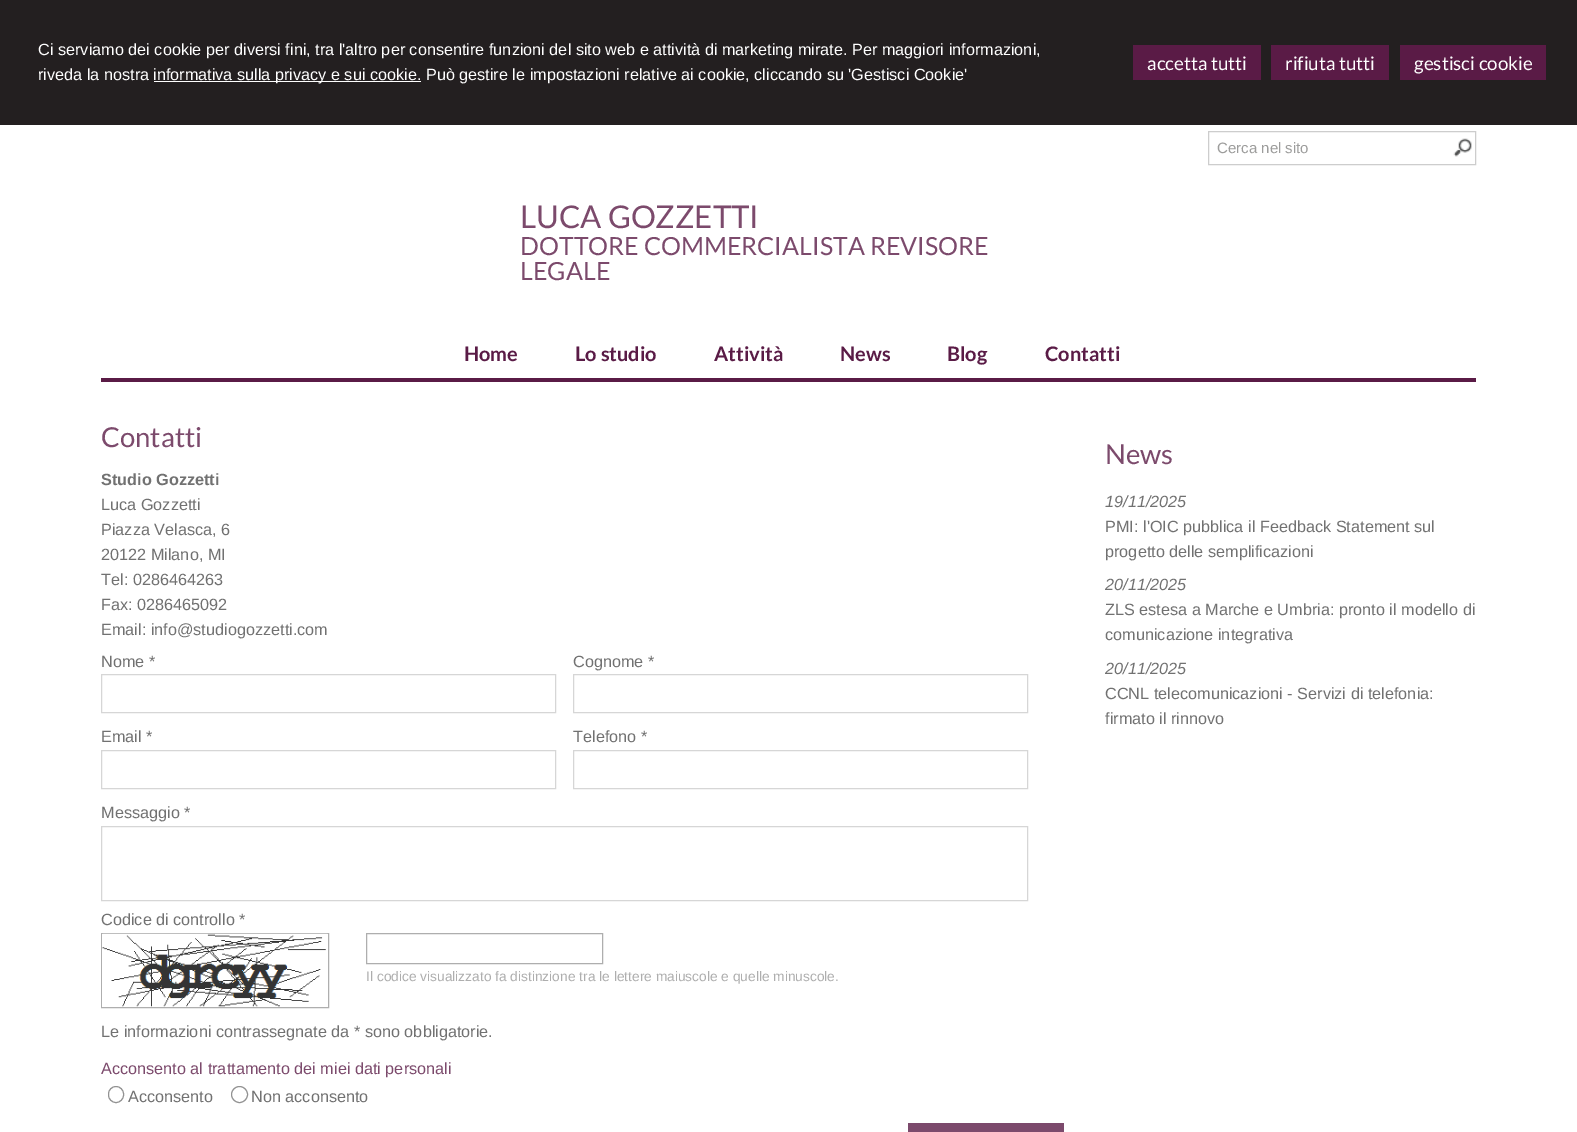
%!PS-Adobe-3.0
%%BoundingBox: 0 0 1577 1132
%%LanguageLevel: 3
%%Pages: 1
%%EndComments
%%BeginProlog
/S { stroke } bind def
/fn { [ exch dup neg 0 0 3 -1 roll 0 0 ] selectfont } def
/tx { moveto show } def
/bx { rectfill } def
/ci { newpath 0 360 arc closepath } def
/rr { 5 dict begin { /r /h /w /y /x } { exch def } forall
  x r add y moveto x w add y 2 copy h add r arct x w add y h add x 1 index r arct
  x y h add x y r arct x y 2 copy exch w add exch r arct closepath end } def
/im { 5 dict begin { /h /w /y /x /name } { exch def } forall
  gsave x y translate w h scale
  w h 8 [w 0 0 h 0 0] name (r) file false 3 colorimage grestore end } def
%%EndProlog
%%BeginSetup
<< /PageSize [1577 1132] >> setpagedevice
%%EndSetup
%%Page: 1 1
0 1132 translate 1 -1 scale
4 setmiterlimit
1 setgray
0 0 1577 1132 bx
0.137 0.122 0.125 setrgbcolor
0 0 1577 125 bx
/LiberationSans-Regular 16.25 fn
1 setgray
(Ci serviamo dei cookie per diversi fini, tra l'altro per consentire funzioni del sito web e attività di marketing mirate. Per maggiori informazioni,) 38 55 tx
(riveda la nostra) 38 80 tx
154 81 267 1 bx
(informativa sulla privacy e sui cookie. Può gestire le impostazioni relative ai cookie, cliccando su 'Gestisci Cookie') 153 80 tx
0.353 0.106 0.275 setrgbcolor
1133 45 128 35 bx
/Lato-Regular 18.75 fn
1 setgray
(accetta tutti) 1147 70 tx
0.353 0.106 0.275 setrgbcolor
1271 45 118 35 bx
1 setgray
(rifiuta tutti) 1285 70 tx
0.353 0.106 0.275 setrgbcolor
1400 45 146 35 bx
1 setgray
(gestisci cookie) 1414 70 tx
0.804 setgray
1208.5 131.5 267 33 rectstroke
/LiberationSans-Regular 15 fn
0.616 0.616 0.612 setrgbcolor
(Cerca nel sito) 1217 153 tx
(image0.raw) 1453 138 19 19 im
/Lato-Regular 31.25 fn
0.486 0.29 0.424 setrgbcolor
(LUCA GOZZETTI) 520 228 tx
/Lato-Regular 25 fn
(DOTTORE COMMERCIALISTA REVISORE) 520 255 tx
(LEGALE) 520 280 tx
0.353 0.106 0.275 setrgbcolor
101 378 1375 4 bx
/Lato-Bold 20 fn
(Home) 464 361 tx
(Lo studio) 575 361 tx
(Attività) 714 361 tx
(News) 840 361 tx
(Blog) 947 361 tx
(Contatti) 1045 361 tx
/Lato-Regular 27.5 fn
0.486 0.29 0.424 setrgbcolor
(Contatti) 101 447 tx
/LiberationSans-Bold 16.25 fn
0.443 setgray
(Studio Gozzetti) 101 485 tx
/LiberationSans-Regular 16.25 fn
(Luca Gozzetti) 101 510 tx
(Piazza Velasca, 6) 101 535 tx
(20122 Milano, MI) 101 560 tx
(Tel: 0286464263) 101 585 tx
(Fax: 0286465092) 101 610 tx
(Email: info@studiogozzetti.com) 101 635 tx
(Nome *) 101 667 tx
0.839 setgray
101.5 674.5 454 38 rectstroke
0.443 setgray
(Cognome *) 573 667 tx
0.839 setgray
573.5 674.5 454 38 rectstroke
0.443 setgray
(Email *) 101 742 tx
0.839 setgray
101.5 750.5 454 38 rectstroke
0.443 setgray
(Telefono *) 573 742 tx
0.839 setgray
573.5 750.5 454 38 rectstroke
0.443 setgray
(Messaggio *) 101 818 tx
0.839 setgray
101.5 826.5 926 74 rectstroke
0.443 setgray
(Codice di controllo *) 101 925 tx
0.682 setgray
101.5 933.5 227 74 rectstroke
(image1.raw) 102 933 226 74 im
366.5 933.5 236 30 rectstroke
/LiberationSans-Regular 13.75 fn
(Il codice visualizzato fa distinzione tra le lettere maiuscole e quelle minuscole.) 366 981 tx
/LiberationSans-Regular 16.25 fn
0.443 setgray
(Le informazioni contrassegnate da * sono obbligatorie.) 101 1037 tx
0.486 0.29 0.424 setrgbcolor
(Acconsento al trattamento dei miei dati personali) 101 1074 tx
0.573 setgray
108.5 1086.5 15 16 7.5 rr S
0.443 setgray
(Acconsento) 128 1102 tx
0.573 setgray
239.5 1094.5 8 ci S
0.443 setgray
(Non acconsento) 251 1102 tx
0.486 0.29 0.424 setrgbcolor
908 1123 156 9 bx
/Lato-Regular 27.5 fn
(News) 1105 464 tx
/LiberationSans-Italic 16.25 fn
0.443 setgray
(19/11/2025) 1105 507 tx
/LiberationSans-Regular 16.25 fn
(PMI: l'OIC pubblica il Feedback Statement sul) 1105 532 tx
(progetto delle semplificazioni) 1105 557 tx
/LiberationSans-Italic 16.25 fn
(20/11/2025) 1105 590 tx
/LiberationSans-Regular 16.25 fn
(ZLS estesa a Marche e Umbria: pronto il modello di) 1105 615 tx
(comunicazione integrativa) 1105 640 tx
/LiberationSans-Italic 16.25 fn
(20/11/2025) 1105 674 tx
/LiberationSans-Regular 16.25 fn
(CCNL telecomunicazioni - Servizi di telefonia:) 1105 699 tx
(firmato il rinnovo) 1105 724 tx
showpage
%%EOF
